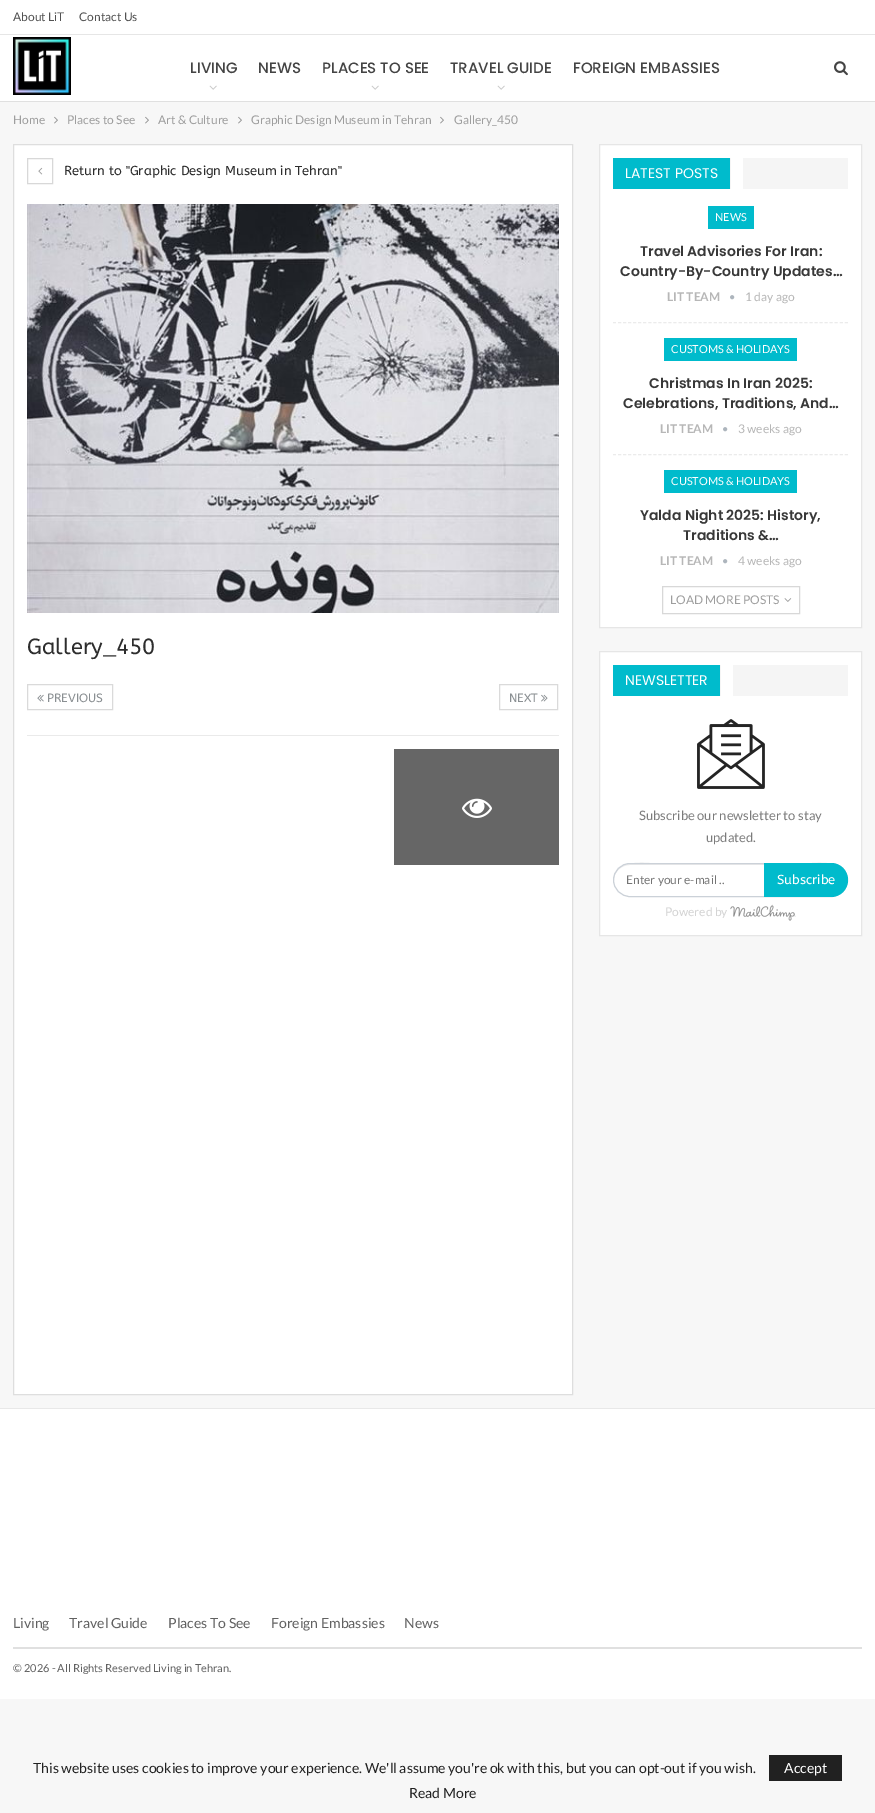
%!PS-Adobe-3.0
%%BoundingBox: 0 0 875 1813
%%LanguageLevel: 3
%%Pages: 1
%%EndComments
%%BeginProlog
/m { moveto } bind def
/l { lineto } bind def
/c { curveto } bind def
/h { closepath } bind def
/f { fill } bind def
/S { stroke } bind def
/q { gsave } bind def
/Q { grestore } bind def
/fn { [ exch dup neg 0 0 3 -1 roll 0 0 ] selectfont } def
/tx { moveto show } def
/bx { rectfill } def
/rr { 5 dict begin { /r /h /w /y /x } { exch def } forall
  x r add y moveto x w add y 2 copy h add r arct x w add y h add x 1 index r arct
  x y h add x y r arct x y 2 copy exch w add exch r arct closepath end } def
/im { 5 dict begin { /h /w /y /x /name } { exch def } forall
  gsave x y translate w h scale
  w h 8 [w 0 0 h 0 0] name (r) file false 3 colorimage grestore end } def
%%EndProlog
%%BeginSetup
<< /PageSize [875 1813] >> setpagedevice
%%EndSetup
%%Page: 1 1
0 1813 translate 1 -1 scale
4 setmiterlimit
0.969 setgray
0 0 875 1813 bx
1 setgray
0 0 875 101 bx
0.878 setgray
0 101 875 1 bx
0.902 setgray
0 34 875 1 bx
/Lato-Regular 12 fn
0.322 setgray
(About LiT) 13 21 tx
(Contact Us) 79 21 tx
(image0.raw) 13 37 58 58 im
/Poppins-Medium 15 fn
0.267 setgray
(LIVING) 190 73 tx
(image1.raw) 209 85 8 5 im
(NEWS) 258 73 tx
(PLACES TO SEE) 322 73 tx
(image1.raw) 371 85 8 5 im
(TRAVEL GUIDE) 450 73 tx
(image1.raw) 497 85 8 5 im
(FOREIGN EMBASSIES) 573 73 tx
(image2.raw) 834 61 14 15 im
/Lato-Regular 12 fn
0.62 setgray
(Home) 13 124 tx
(image3.raw) 54 116 4 8 im
(Places to See) 67 124 tx
(image3.raw) 145 116 4 8 im
(Art & Culture) 158 124 tx
(image3.raw) 238 116 4 8 im
(Graphic Design Museum in Tehran) 251 124 tx
(image3.raw) 440 116 4 8 im
(Gallery_450) 454 124 tx
1 setgray
13.5 144.5 m 572.5 144.5 l 572.5 1394.5 l 13.5 1394.5 l h q f Q
0.871 setgray
S
0.847 setgray
27.5 158.5 25 25 rectstroke
(image4.raw) 38 167 5 8 im
/ABeeZee-Regular 13 fn
0.176 setgray
(Return to "Graphic Design Museum in Tehran") 64 175 tx
(image5.raw) 27 204 532 409 im
/ABeeZee-Regular 22 fn
(Gallery_450) 27 654 tx
0.855 setgray
27.5 684.5 85 25 rectstroke
(image6.raw) 37 694 7 8 im
/ABeeZee-Regular 12 fn
0.541 0.561 0.573 setrgbcolor
(PREVIOUS) 47 702 tx
0.855 setgray
499.5 684.5 58 25 rectstroke
0.541 0.561 0.573 setrgbcolor
(NEXT) 509 702 tx
(image7.raw) 541 694 7 8 im
0.918 setgray
27 735 532 1 bx
0.4 setgray
394 749 165 116 bx
(image8.raw) 462 798 30 20 im
1 setgray
599.5 144.5 m 861.5 144.5 l 861.5 627.5 l 599.5 627.5 l h q f Q
0.902 setgray
S
0 0.733 0.8 setrgbcolor
613 158 117 31 bx
/Poppins-Regular 14 fn
1 setgray
(LATEST POSTS) 625 178 tx
0.961 setgray
730 158 118 31 bx
1 setgray
731 158 12 31 bx
0.922 setgray
[3 2.04] 0 setdash
613 322.5 m 848 322.5 l S
0 0.733 0.8 setrgbcolor
708 206 46 23 bx
/Lato-Regular 11 fn
1 setgray
(NEWS) 715 221 tx
/Poppins-SemiBold 14 fn
0.22 setgray
(Travel Advisories For Iran:) 640 256 tx
(Country-By-Country Updates…) 620 276 tx
/Lato-Bold 12 fn
0.718 setgray
(LIT TEAM) 667 301 tx
(image9.raw) 730 295 5 5 im
/Lato-Regular 12 fn
(1 day ago) 745 301 tx
0.922 setgray
613 454.5 m 848 454.5 l S
0 0.733 0.8 setrgbcolor
664 338 133 23 bx
/Lato-Regular 11 fn
1 setgray
(CUSTOMS & HOLIDAYS) 671 353 tx
/Poppins-SemiBold 14 fn
0.22 setgray
(Christmas In Iran 2025:) 649 388 tx
(Celebrations, Traditions, And…) 623 408 tx
/Lato-Bold 12 fn
0.718 setgray
(LIT TEAM) 660 433 tx
(image9.raw) 723 427 5 5 im
/Lato-Regular 12 fn
(3 weeks ago) 738 433 tx
0 0.733 0.8 setrgbcolor
664 470 133 23 bx
/Lato-Regular 11 fn
1 setgray
(CUSTOMS & HOLIDAYS) 671 485 tx
/Poppins-SemiBold 14 fn
0.22 setgray
(Yalda Night 2025: History,) 640 520 tx
(Traditions &…) 683 540 tx
/Lato-Bold 12 fn
0.718 setgray
(LIT TEAM) 660 565 tx
(image9.raw) 723 559 5 5 im
/Lato-Regular 12 fn
(4 weeks ago) 738 565 tx
0.847 setgray
[] 0 setdash
662.5 586.5 137 27 rectstroke
0.62 setgray
(LOAD MORE POSTS) 670 604 tx
(image10.raw) 784 598 8 4 im
1 setgray
599.5 651.5 m 861.5 651.5 l 861.5 935.5 l 599.5 935.5 l h q f Q
0.902 setgray
S
0 0.733 0.8 setrgbcolor
613 665 107 31 bx
/Poppins-Regular 14 fn
1 setgray
(NEWSLETTER) 625 685 tx
0.961 setgray
720 665 128 31 bx
1 setgray
721 665 12 31 bx
(image11.raw) 697 719 68 70 im
/Lato-Regular 13 fn
0.482 setgray
(Subscribe our newsletter to stay) 639 820 tx
(updated.) 706 842 tx
0.925 setgray
630 865 m 831 865 l 840 865 847 872 847 880 c 848 856 808 864 798 864 c 664 864 l 653 864 613 856 614 880 c 614 872 621 865 630 865 c h f
0.796 0.82 0.847 setrgbcolor
613.5 863.5 234 33 16.5 rr S
/Lato-Regular 12 fn
0.459 setgray
(Enter your e-mail ..) 626 884 tx
0 0.733 0.8 setrgbcolor
764 863 m 831 863 l 840.5 863 848 870.5 848 880 c 848 889.5 840.5 897 831 897 c 764 897 l h f
/ABeeZee-Regular 13 fn
1 setgray
(Subscribe) 777 884 tx
/Lato-Regular 12 fn
0.831 setgray
(Powered by) 665 916 tx
(image12.raw) 730 904 66 17 im
1 setgray
0 1409 875 290 bx
0.91 setgray
0 1408 875 1 bx
0.878 setgray
13 1647 849 2 bx
/Lato-Regular 14 fn
0.38 setgray
(Living) 13 1628 tx
(Travel Guide) 69 1628 tx
(Places To See) 168 1628 tx
(Foreign Embassies) 271 1628 tx
(News) 404 1628 tx
/Lato-Regular 11 fn
(© 2026 - All Rights Reserved Living in Tehran.) 13 1672 tx
/Lato-Regular 14 fn
0.129 setgray
(This website uses cookies to improve your experience. We'll assume you're ok with this, but you can opt-out if you wish.) 33 1773 tx
769 1755 73 26 bx
1 setgray
(Accept) 784 1773 tx
0.129 setgray
(Read More) 409 1798 tx
showpage
%%EOF
